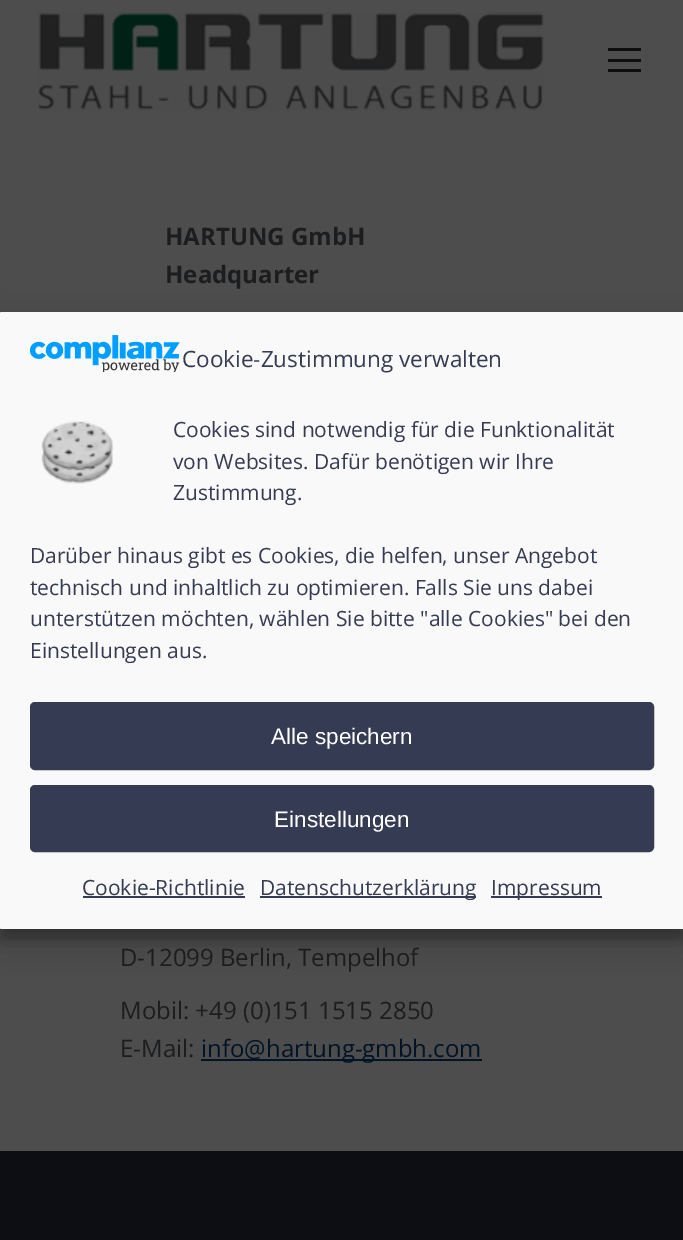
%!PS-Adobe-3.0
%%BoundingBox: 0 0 683 1240
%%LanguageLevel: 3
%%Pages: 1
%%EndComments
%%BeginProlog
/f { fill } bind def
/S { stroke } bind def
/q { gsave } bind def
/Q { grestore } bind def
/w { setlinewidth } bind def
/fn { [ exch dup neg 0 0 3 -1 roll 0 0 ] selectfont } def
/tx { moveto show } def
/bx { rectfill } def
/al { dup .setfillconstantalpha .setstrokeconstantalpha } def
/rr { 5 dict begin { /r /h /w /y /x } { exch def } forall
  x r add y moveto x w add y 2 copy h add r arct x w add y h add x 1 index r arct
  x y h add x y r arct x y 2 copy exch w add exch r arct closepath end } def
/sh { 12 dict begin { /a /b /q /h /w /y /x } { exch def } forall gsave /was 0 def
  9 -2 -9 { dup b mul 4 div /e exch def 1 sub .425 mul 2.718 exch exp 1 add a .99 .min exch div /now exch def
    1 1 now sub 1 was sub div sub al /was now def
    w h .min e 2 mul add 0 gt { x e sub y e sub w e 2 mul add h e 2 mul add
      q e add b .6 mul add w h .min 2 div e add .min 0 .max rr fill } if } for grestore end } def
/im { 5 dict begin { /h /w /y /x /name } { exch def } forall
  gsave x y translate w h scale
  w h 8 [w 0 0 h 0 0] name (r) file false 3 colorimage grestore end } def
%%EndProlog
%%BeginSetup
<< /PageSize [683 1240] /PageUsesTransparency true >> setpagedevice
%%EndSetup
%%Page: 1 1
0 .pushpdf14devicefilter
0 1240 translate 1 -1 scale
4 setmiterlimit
0.302 setgray
0 0 683 1240 bx
(image0.raw) 38 12 506 99 im
0.059 setgray
608 48 33 3 bx
608 59 33 3 bx
608 69 33 3 bx
/OpenSans-Bold 24 fn
0.11 0.114 0.122 setrgbcolor
(HARTUNG GmbH) 165 245 tx
(Headquarter) 165 283 tx
/OpenSans-Regular 24 fn
(D-12099 Berlin, Tempelhof) 120 966 tx
(Mobil: +49 \(0\)151 1515 2850) 120 1019 tx
(E-Mail:) 120 1057 tx
0.004 0.078 0.149 setrgbcolor
201 1059 281 2 bx
(info@hartung-gmbh.com) 201 1057 tx
0.051 0.051 0.078 setrgbcolor
0 1151 683 89 bx
0 setgray
0 321 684 617 1.5 4.5 0.23 sh
0 327 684 617 1.5 15 0.19 sh
0.976 setgray
0 312 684 617 1.5 rr f
(image1.raw) 30 335 150 37 im
/OpenSans-Regular 22.5 fn
0.208 0.231 0.325 setrgbcolor
(Cookie-Zustimmung verwalten) 182 367 tx
(image2.raw) 41 421 72 63 im
/OpenSans-Regular 21 fn
(Cookies sind notwendig für die Funktionalität) 173 437 tx
(von Websites. Dafür benötigen wir Ihre) 173 469 tx
(Zustimmung.) 173 500 tx
(Darüber hinaus gibt es Cookies, die helfen, unser Angebot) 30 563 tx
(technisch und inhaltlich zu optimieren. Falls Sie uns dabei) 30 595 tx
(unterstützen möchten, wählen Sie bitte "alle Cookies" bei den) 30 626 tx
(Einstellungen aus.) 30 658 tx
31 703 622 66 4 rr q f Q
2 w
S
/LiberationSans-Regular 22.5 fn
1 setgray
(Alle speichern) 271 744 tx
0.208 0.231 0.325 setrgbcolor
31 786 622 65 4 rr q f Q
S
1 setgray
(Einstellungen) 274 827 tx
/OpenSans-Regular 21 fn
0.208 0.231 0.325 setrgbcolor
(Cookie-Richtlinie) 82 895 tx
83 896 162 2 bx
260 896 216 2 bx
(Datenschutzerklärung) 260 895 tx
491 896 111 2 bx
(Impressum) 491 895 tx
.poppdf14devicefilter showpage
%%EOF
